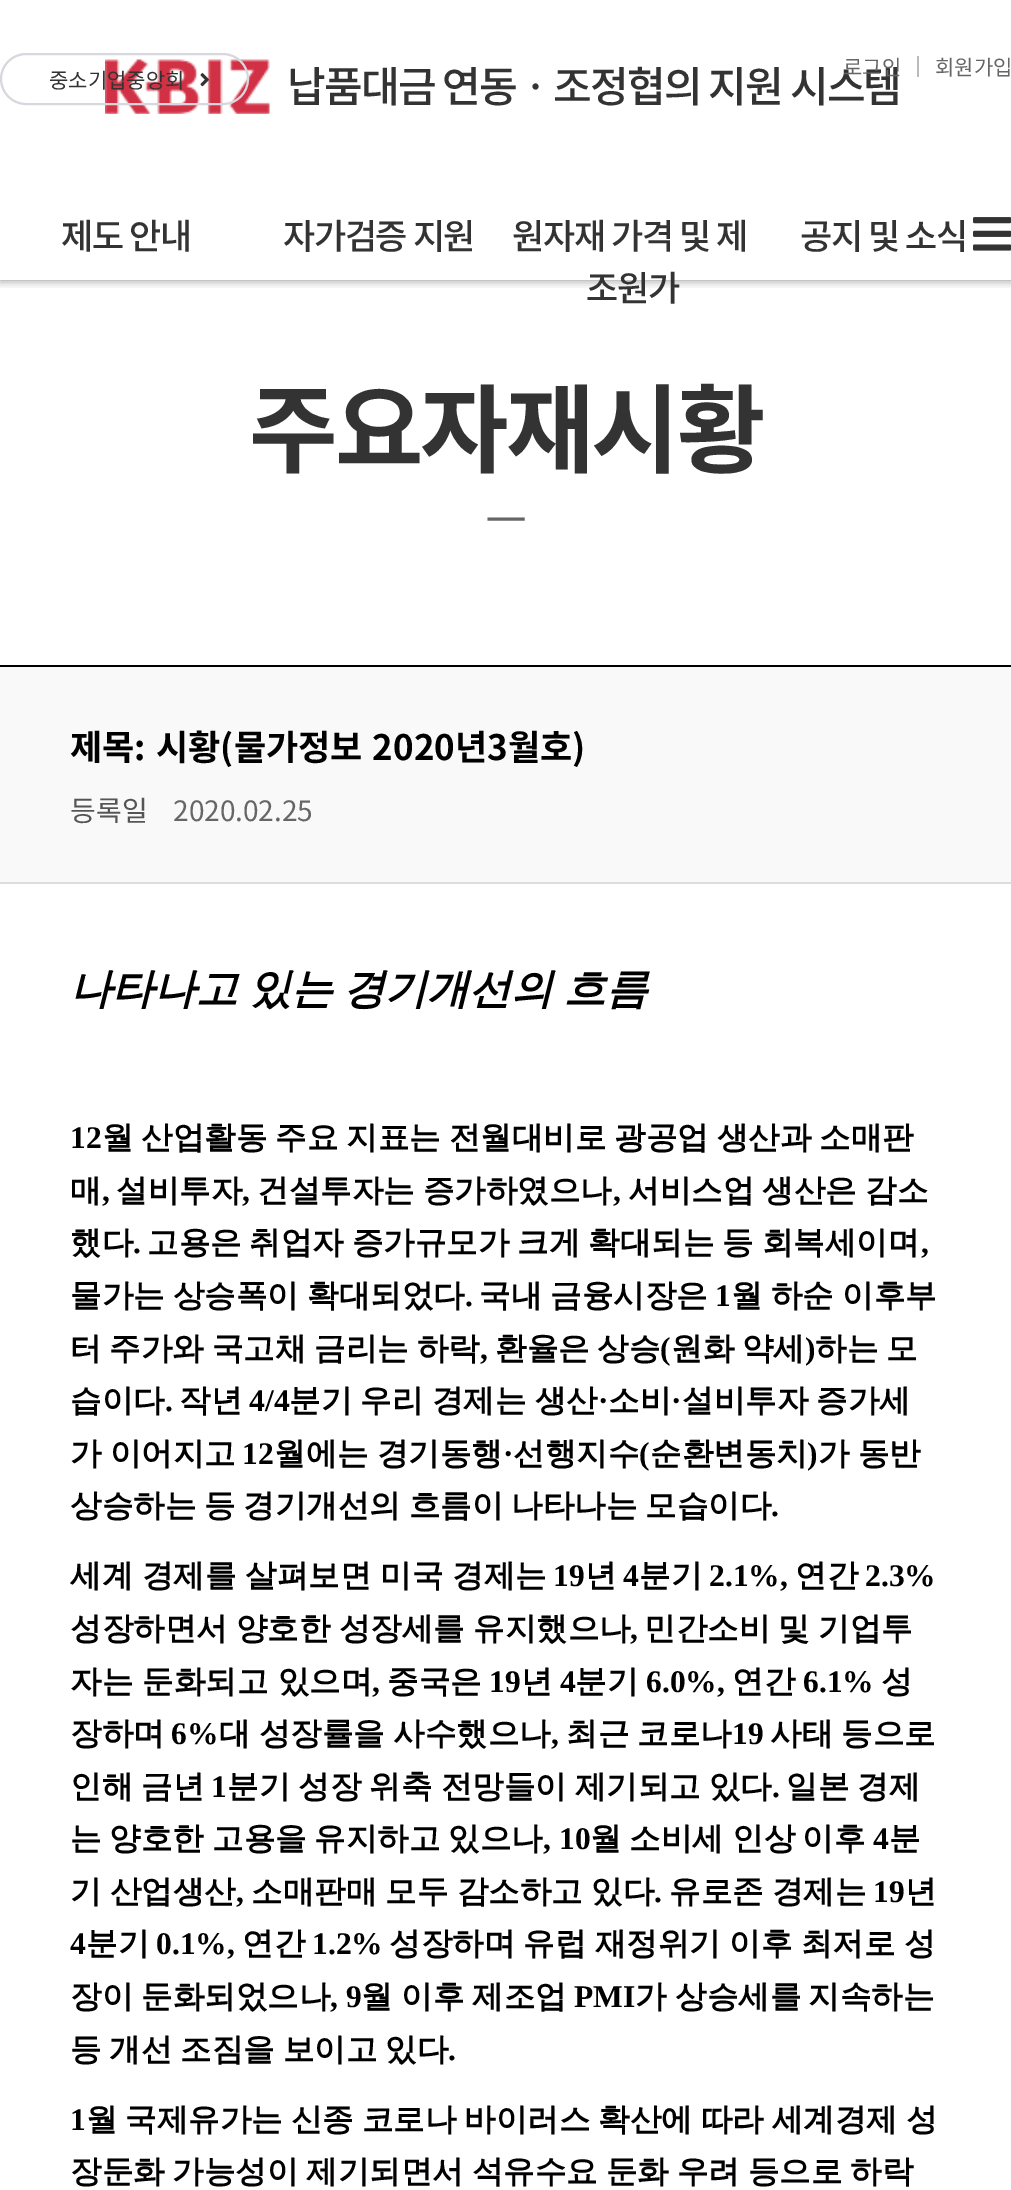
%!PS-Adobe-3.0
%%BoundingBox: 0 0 1011 2190
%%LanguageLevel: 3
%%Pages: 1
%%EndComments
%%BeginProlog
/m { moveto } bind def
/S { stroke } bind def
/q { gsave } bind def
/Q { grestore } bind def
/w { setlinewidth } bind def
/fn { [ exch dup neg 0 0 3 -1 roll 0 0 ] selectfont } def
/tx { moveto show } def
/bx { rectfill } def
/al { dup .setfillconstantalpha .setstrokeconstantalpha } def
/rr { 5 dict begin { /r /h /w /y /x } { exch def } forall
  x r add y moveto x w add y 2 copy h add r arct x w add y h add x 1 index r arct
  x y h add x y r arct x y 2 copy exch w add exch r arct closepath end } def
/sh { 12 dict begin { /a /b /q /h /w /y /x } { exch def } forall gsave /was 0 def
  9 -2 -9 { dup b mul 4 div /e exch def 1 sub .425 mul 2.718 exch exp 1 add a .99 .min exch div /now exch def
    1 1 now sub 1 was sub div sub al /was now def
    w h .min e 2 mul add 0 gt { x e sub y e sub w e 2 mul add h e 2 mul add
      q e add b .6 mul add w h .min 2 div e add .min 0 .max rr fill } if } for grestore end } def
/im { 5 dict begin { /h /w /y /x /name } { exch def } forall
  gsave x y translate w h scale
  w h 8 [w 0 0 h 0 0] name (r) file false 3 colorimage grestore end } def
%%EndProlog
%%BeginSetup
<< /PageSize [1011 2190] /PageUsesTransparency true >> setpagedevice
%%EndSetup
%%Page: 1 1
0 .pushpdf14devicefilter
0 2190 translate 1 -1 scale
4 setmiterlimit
1 setgray
0 0 1011 2190 bx
q
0 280 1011 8 rectclip
0 setgray
0 0 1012 280 0 5 0.45 sh
Q
(image1.raw) 105 59 165 55 im
0.843 0.847 0.867 setrgbcolor
2 w
1 54 247 50 25 rr S
/NotoSansCJKKR-Regular 21 fn
0.2 setgray
(중소기업중앙회) 49 88 tx
(image0.raw) 200 73 9 14 im
/NotoSansCJKKR-Medium 42 fn
287 102 m -1.75 0 (납품대금 연동ㆍ조정협의 지원 시스템) ashow
/NotoSansCJKKR-Regular 21 fn
0.4 setgray
(로그인) 843 75 tx
0.733 setgray
917 56 2 21 bx
0.4 setgray
(회원가입) 935 75 tx
/NotoSansCJKKR-Medium 35 fn
0.2 setgray
61 249 m -1.4 0 (제도 안내) ashow
283 249 m -1.4 0 (자가검증 지원) ashow
512 249 m -1.4 0 (원자재 가격 및 제) ashow
586 301 m -1.4 0 (조원가) ashow
800 249 m -1.4 0 (공지 및 소식) ashow
(image2.raw) 973 217 38 34 im
/NotoSansCJKKR-Bold 96.25 fn
249 465 m -3 0 (주요자재시황) ashow
/NotoSansCJKKR-Regular 46 fn
0.4 setgray
(ㅡ) 485 537 tx
0 setgray
0 665 1011 2 bx
0.867 setgray
0 882 1011 2 bx
0.976 setgray
0 667 1011 215 bx
/NotoSansCJKKR-Bold 35 fn
0 setgray
(제목:) 70 760 tx
156 760 m 2 0 32 (시황\(물가정보 2020년3월호\)) widthshow
/NotoSansCJKKR-Regular 28 fn
0.333 setgray
(등록일) 70 821 tx
0.4 setgray
(2020.02.25) 173 821 tx
/WenQuanYiZenHei-BoldItalic 42 fn
0 setgray
70 1003 m -2 0 32 (나타나고 있는 경기개선의 흐름) widthshow
/LiberationSerif-Bold 31.5 fn
(12) 70 1148 tx
/WenQuanYiZenHei-Bold 31.5 fn
102 1148 m -1.5 0 32 (월 산업활동 주요 지표는 전월대비로 광공업 생산과 소매판) widthshow
(매) 70 1201 tx
/LiberationSerif-Bold 31.5 fn
(,) 102 1201 tx
/WenQuanYiZenHei-Bold 31.5 fn
(설비투자) 116 1201 tx
/LiberationSerif-Bold 31.5 fn
(,) 242 1201 tx
/WenQuanYiZenHei-Bold 31.5 fn
257 1201 m -1 0 32 (건설투자는 증가하였으나) widthshow
/LiberationSerif-Bold 31.5 fn
(,) 613 1201 tx
/WenQuanYiZenHei-Bold 31.5 fn
628 1201 m -1 0 32 (서비스업 생산은 감소) widthshow
(했다) 70 1253 tx
/LiberationSerif-Bold 31.5 fn
(.) 133 1253 tx
/WenQuanYiZenHei-Bold 31.5 fn
147 1253 m -1.5 0 32 (고용은 취업자 증가규모가 크게 확대되는 등 회복세이며) widthshow
/LiberationSerif-Bold 31.5 fn
(,) 921 1253 tx
/WenQuanYiZenHei-Bold 31.5 fn
70 1306 m -1 0 32 (물가는 상승폭이 확대되었다) widthshow
/LiberationSerif-Bold 31.5 fn
(.) 465 1306 tx
/WenQuanYiZenHei-Bold 31.5 fn
479 1306 m -1 0 32 (국내 금융시장은) widthshow
/LiberationSerif-Bold 31.5 fn
(1) 715 1306 tx
/WenQuanYiZenHei-Bold 31.5 fn
731 1306 m -1 0 32 (월 하순 이후부) widthshow
70 1359 m -1.5 0 32 (터 주가와 국고채 금리는 하락) widthshow
/LiberationSerif-Bold 31.5 fn
(,) 480 1359 tx
/WenQuanYiZenHei-Bold 31.5 fn
495 1359 m -1.5 0 32 (환율은 상승) widthshow
/LiberationSerif-Bold 31.5 fn
(\() 660 1359 tx
/WenQuanYiZenHei-Bold 31.5 fn
671 1359 m -1.5 0 32 (원화 약세) widthshow
/LiberationSerif-Bold 31.5 fn
(\)) 805 1359 tx
/WenQuanYiZenHei-Bold 31.5 fn
815 1359 m -1.5 0 32 (하는 모) widthshow
(습이다) 70 1411 tx
(작년) 179 1411 tx
/LiberationSerif-Bold 31.5 fn
(4/4) 249 1411 tx
/WenQuanYiZenHei-Bold 31.5 fn
289 1411 m -1 0 32 (분기 우리 경제는 생산) widthshow
/LiberationSerif-Bold 31.5 fn
(·) 598 1411 tx
/WenQuanYiZenHei-Bold 31.5 fn
(소비) 608 1411 tx
/LiberationSerif-Bold 31.5 fn
(·) 671 1411 tx
/WenQuanYiZenHei-Bold 31.5 fn
682 1411 m -1 0 32 (설비투자 증가세) widthshow
/LiberationSerif-Bold 31.5 fn
(.) 165 1411 tx
/WenQuanYiZenHei-Bold 31.5 fn
70 1464 m -1 0 32 (가 이어지고) widthshow
/LiberationSerif-Bold 31.5 fn
(12) 242 1464 tx
/WenQuanYiZenHei-Bold 31.5 fn
274 1464 m -1 0 32 (월에는 경기동행) widthshow
/LiberationSerif-Bold 31.5 fn
(·) 503 1464 tx
/WenQuanYiZenHei-Bold 31.5 fn
(선행지수) 513 1464 tx
/LiberationSerif-Bold 31.5 fn
(\() 639 1464 tx
/WenQuanYiZenHei-Bold 31.5 fn
(순환변동치) 650 1464 tx
/LiberationSerif-Bold 31.5 fn
(\)) 807 1464 tx
/WenQuanYiZenHei-Bold 31.5 fn
818 1464 m -1 0 32 (가 동반) widthshow
70 1516 m -1.5 0 32 (상승하는 등 경기개선의 흐름이 나타나는 모습이다) widthshow
/LiberationSerif-Bold 31.5 fn
(.) 771 1516 tx
/WenQuanYiZenHei-Bold 31.5 fn
70 1586 m -0.5 0 32 (세계 경제를 살펴보면 미국 경제는) widthshow
/LiberationSerif-Bold 31.5 fn
(19) 553 1586 tx
/WenQuanYiZenHei-Bold 31.5 fn
(년) 585 1586 tx
/LiberationSerif-Bold 31.5 fn
(4) 623 1586 tx
/WenQuanYiZenHei-Bold 31.5 fn
(분기) 639 1586 tx
/LiberationSerif-Bold 31.5 fn
(2.1%,) 709 1586 tx
/WenQuanYiZenHei-Bold 31.5 fn
(연간) 795 1586 tx
/LiberationSerif-Bold 31.5 fn
(2.3%) 865 1586 tx
/WenQuanYiZenHei-Bold 31.5 fn
70 1639 m -1 0 32 (성장하면서 양호한 성장세를 유지했으나) widthshow
/LiberationSerif-Bold 31.5 fn
(,) 630 1639 tx
/WenQuanYiZenHei-Bold 31.5 fn
644 1639 m -1 0 32 (민간소비 및 기업투) widthshow
(자는 둔화되고 있으며) 70 1692 tx
/LiberationSerif-Bold 31.5 fn
(,) 372 1692 tx
/WenQuanYiZenHei-Bold 31.5 fn
(중국은) 387 1692 tx
/LiberationSerif-Bold 31.5 fn
(19) 489 1692 tx
/WenQuanYiZenHei-Bold 31.5 fn
(년) 521 1692 tx
/LiberationSerif-Bold 31.5 fn
(4) 560 1692 tx
/WenQuanYiZenHei-Bold 31.5 fn
(분기) 575 1692 tx
/LiberationSerif-Bold 31.5 fn
(6.0%,) 646 1692 tx
/WenQuanYiZenHei-Bold 31.5 fn
(연간) 732 1692 tx
/LiberationSerif-Bold 31.5 fn
(6.1%) 803 1692 tx
/WenQuanYiZenHei-Bold 31.5 fn
(성) 881 1692 tx
(장하며) 70 1744 tx
/LiberationSerif-Bold 31.5 fn
(6%) 171 1744 tx
/WenQuanYiZenHei-Bold 31.5 fn
219 1744 m -1 0 32 (대 성장률을 사수했으나) widthshow
/LiberationSerif-Bold 31.5 fn
(,) 551 1744 tx
/WenQuanYiZenHei-Bold 31.5 fn
566 1744 m -1 0 32 (최근 코로나) widthshow
/LiberationSerif-Bold 31.5 fn
(19) 732 1744 tx
/WenQuanYiZenHei-Bold 31.5 fn
770 1744 m -1 0 32 (사태 등으로) widthshow
70 1797 m -1.25 0 32 (인해 금년) widthshow
/LiberationSerif-Bold 31.5 fn
(1) 211 1797 tx
/WenQuanYiZenHei-Bold 31.5 fn
227 1797 m -1.25 0 32 (분기 성장 위축 전망들이 제기되고 있다) widthshow
/LiberationSerif-Bold 31.5 fn
(.) 772 1797 tx
/WenQuanYiZenHei-Bold 31.5 fn
786 1797 m -1.25 0 32 (일본 경제) widthshow
(는) 70 1849 tx
(양호한) 109 1849 tx
(고용을) 212 1849 tx
(유지하고) 314 1849 tx
(있으나) 448 1849 tx
/LiberationSerif-Bold 31.5 fn
(, 10) 543 1849 tx
/WenQuanYiZenHei-Bold 31.5 fn
(월) 590 1849 tx
(소비세) 629 1849 tx
(인상) 732 1849 tx
(이후) 802 1849 tx
/LiberationSerif-Bold 31.5 fn
(4) 873 1849 tx
/WenQuanYiZenHei-Bold 31.5 fn
(분) 889 1849 tx
70 1902 m -1 0 32 (기 산업생산) widthshow
/LiberationSerif-Bold 31.5 fn
(,) 236 1902 tx
/WenQuanYiZenHei-Bold 31.5 fn
251 1902 m -1 0 32 (소매판매 모두 감소하고 있다) widthshow
/LiberationSerif-Bold 31.5 fn
(.) 654 1902 tx
/WenQuanYiZenHei-Bold 31.5 fn
669 1902 m -1 0 32 (유로존 경제는) widthshow
/LiberationSerif-Bold 31.5 fn
(19) 873 1902 tx
/WenQuanYiZenHei-Bold 31.5 fn
(년) 905 1902 tx
/LiberationSerif-Bold 31.5 fn
(4) 70 1954 tx
/WenQuanYiZenHei-Bold 31.5 fn
(분기) 86 1954 tx
/LiberationSerif-Bold 31.5 fn
(0.1%,) 156 1954 tx
/WenQuanYiZenHei-Bold 31.5 fn
(연간) 242 1954 tx
/LiberationSerif-Bold 31.5 fn
(1.2%) 312 1954 tx
/WenQuanYiZenHei-Bold 31.5 fn
389 1954 m -1 0 32 (성장하며 유럽 재정위기 이후 최저로 성) widthshow
(장이) 70 2007 tx
(둔화되었으나) 141 2007 tx
/LiberationSerif-Bold 31.5 fn
(, 9) 330 2007 tx
/WenQuanYiZenHei-Bold 31.5 fn
(월) 361 2007 tx
(이후) 401 2007 tx
(제조업) 472 2007 tx
/LiberationSerif-Bold 31.5 fn
(PMI) 574 2007 tx
/WenQuanYiZenHei-Bold 31.5 fn
(가) 635 2007 tx
(상승세를) 675 2007 tx
(지속하는) 808 2007 tx
70 2060 m -1.5 0 32 (등 개선 조짐을 보이고 있다) widthshow
/LiberationSerif-Bold 31.5 fn
(.) 448 2060 tx
(1) 70 2130 tx
/WenQuanYiZenHei-Bold 31.5 fn
86 2130 m -1.5 0 32 (월 국제유가는 신종 코로나 바이러스 확산에 따라 세계경제 성) widthshow
70 2182 m -1.5 0 32 (장둔화 가능성이 제기되면서 석유수요 둔화 우려 등으로 하락) widthshow
.poppdf14devicefilter showpage
%%EOF
